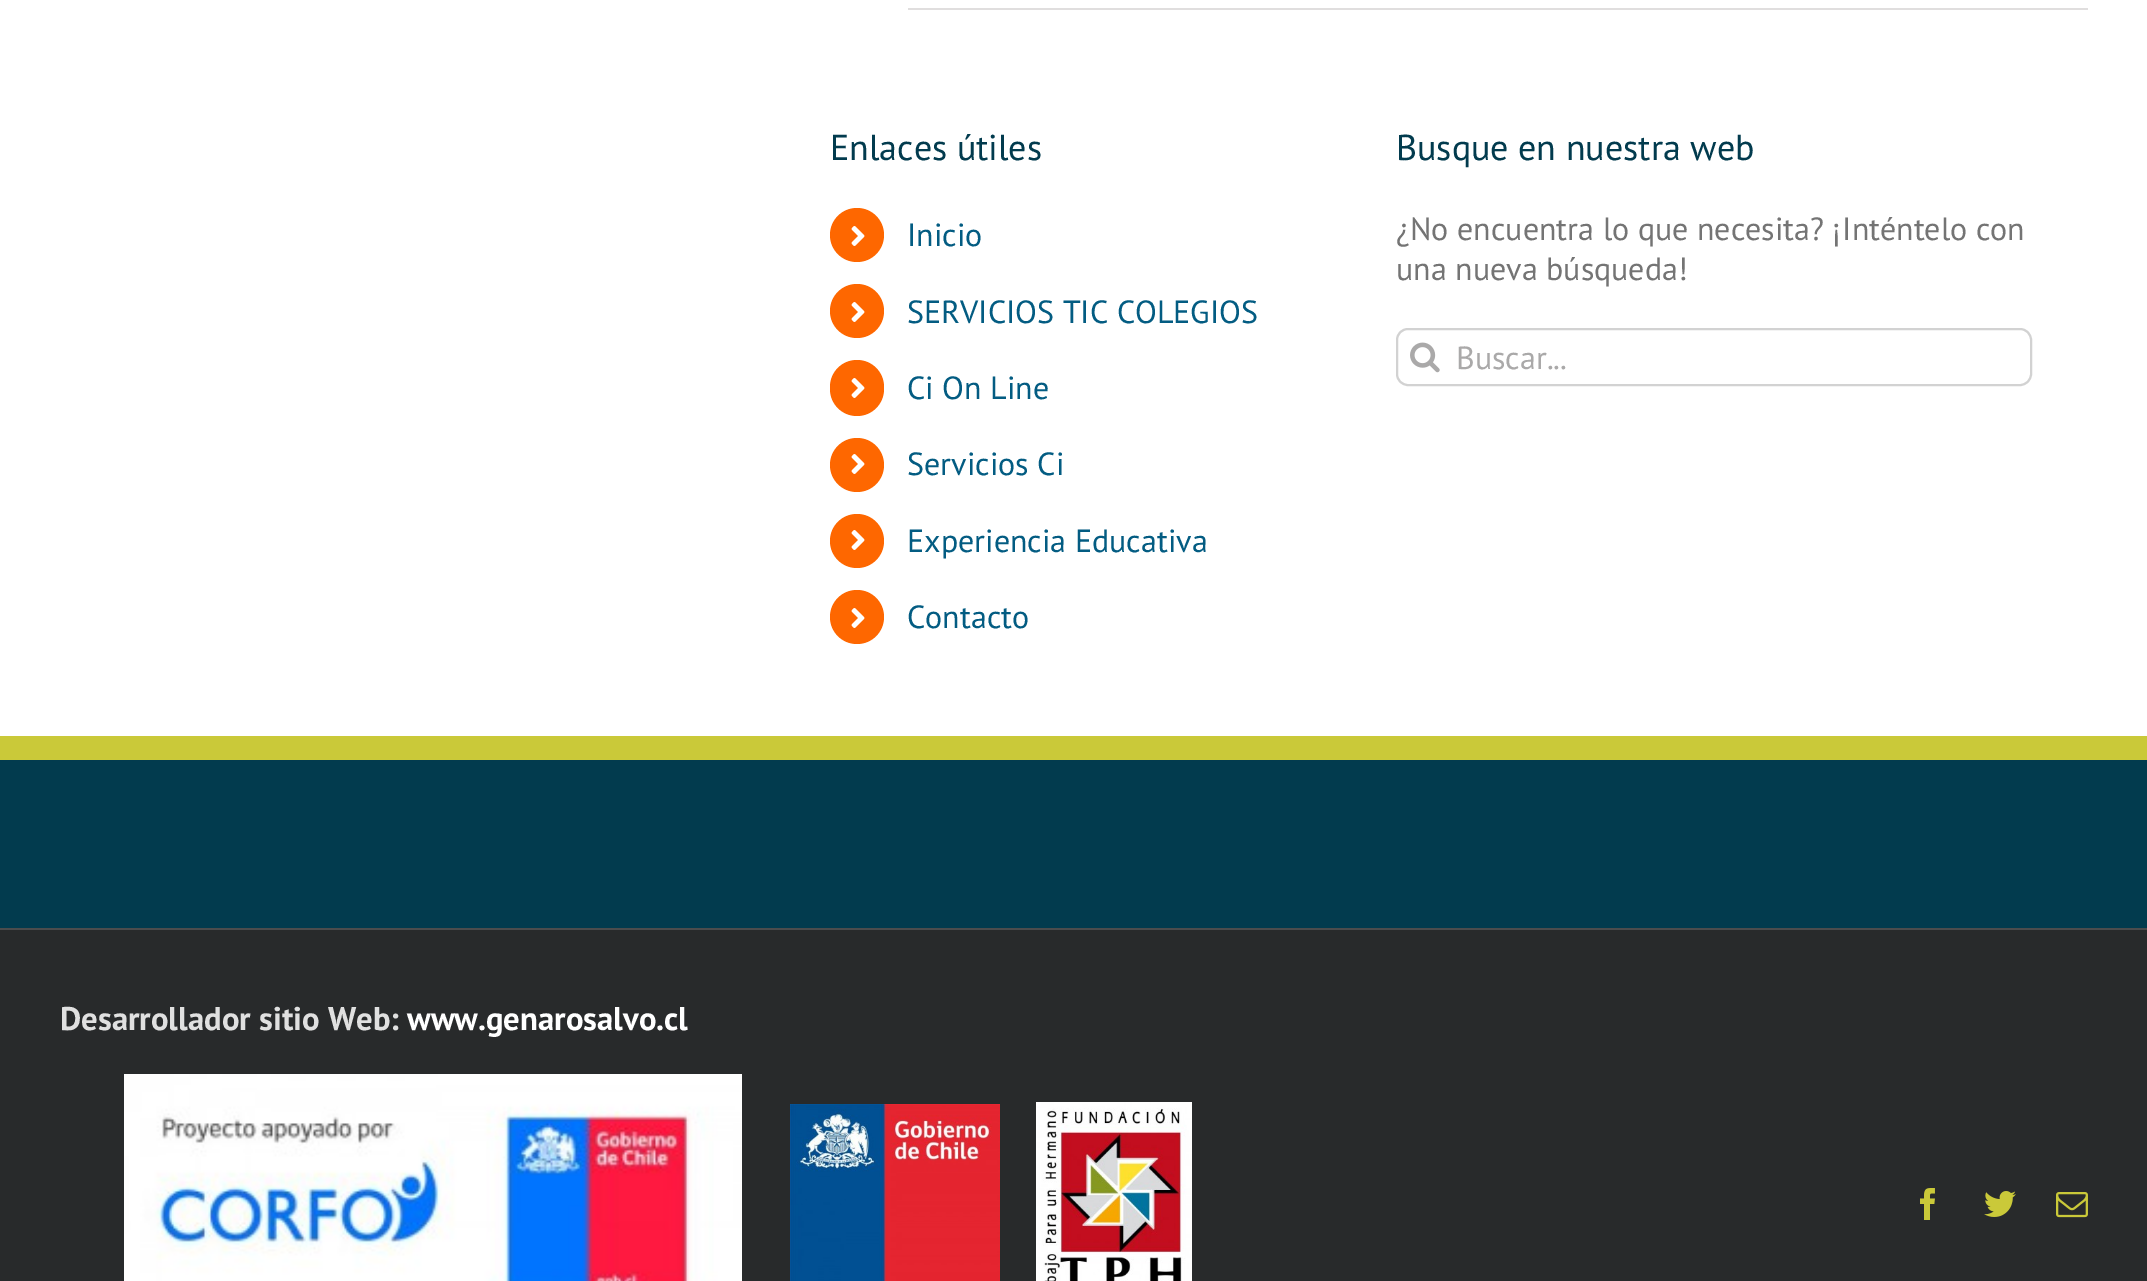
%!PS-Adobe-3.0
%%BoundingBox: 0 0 2147 1281
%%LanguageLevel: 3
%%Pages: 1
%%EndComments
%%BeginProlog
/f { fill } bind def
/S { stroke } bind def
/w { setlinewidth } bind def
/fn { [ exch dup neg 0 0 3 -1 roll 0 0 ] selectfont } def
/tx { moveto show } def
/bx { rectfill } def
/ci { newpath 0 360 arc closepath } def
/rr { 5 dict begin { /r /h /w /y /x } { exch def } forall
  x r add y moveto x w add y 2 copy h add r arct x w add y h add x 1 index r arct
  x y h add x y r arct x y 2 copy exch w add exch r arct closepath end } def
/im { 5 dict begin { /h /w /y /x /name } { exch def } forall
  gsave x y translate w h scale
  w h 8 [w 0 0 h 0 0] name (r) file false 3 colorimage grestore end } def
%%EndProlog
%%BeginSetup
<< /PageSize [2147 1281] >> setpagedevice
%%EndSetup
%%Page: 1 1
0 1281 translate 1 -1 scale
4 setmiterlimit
1 setgray
0 0 2147 1281 bx
0.878 0.871 0.871 setrgbcolor
908 8 1180 2 bx
/PTSans-Regular 36 fn
0.008 0.231 0.306 setrgbcolor
(Enlaces útiles) 830 160 tx
0.996 0.404 0 setrgbcolor
857 235 27 ci f
(image0.raw) 851 226 14 20 im
/PTSans-Regular 32 fn
0.012 0.361 0.51 setrgbcolor
(Inicio) 907 246 tx
0.996 0.404 0 setrgbcolor
857 311 27 ci f
(image0.raw) 851 302 14 20 im
0.012 0.361 0.51 setrgbcolor
(SERVICIOS TIC COLEGIOS) 907 323 tx
0.996 0.404 0 setrgbcolor
830 360 54 56 27 rr f
(image0.raw) 851 378 14 20 im
0.012 0.361 0.51 setrgbcolor
(Ci On Line) 907 399 tx
0.996 0.404 0 setrgbcolor
857 465 27 ci f
(image0.raw) 851 454 14 20 im
0.012 0.361 0.51 setrgbcolor
(Servicios Ci) 907 475 tx
0.996 0.404 0 setrgbcolor
857 541 27 ci f
(image0.raw) 851 530 14 20 im
0.012 0.361 0.51 setrgbcolor
(Experiencia Educativa) 907 552 tx
0.996 0.404 0 setrgbcolor
857 617 27 ci f
(image0.raw) 851 608 14 20 im
0.012 0.361 0.51 setrgbcolor
(Contacto) 907 628 tx
/PTSans-Regular 36 fn
0.008 0.231 0.306 setrgbcolor
(Busque en nuestra web) 1396 160 tx
/PTSans-Regular 32 fn
0.455 setgray
(¿No encuentra lo que necesita? ¡Inténtelo con) 1396 240 tx
(una nueva búsqueda!) 1396 280 tx
0.824 setgray
2 w
1397 329 634 56 11 rr S
(image1.raw) 1410 342 30 31 im
0.667 0.663 0.663 setrgbcolor
(Buscar...) 1456 369 tx
0.008 0.231 0.306 setrgbcolor
0 760 2147 168 bx
0.792 0.788 0.224 setrgbcolor
0 736 2147 24 bx
0.157 0.165 0.169 setrgbcolor
0 930 2147 351 bx
0.294 0.298 0.302 setrgbcolor
0 928 2147 2 bx
/PTSans-Bold 32.75 fn
0.878 setgray
(Desarrollador sitio Web:) 60 1030 tx
1 setgray
(www.genarosalvo.cl) 407 1030 tx
(image2.raw) 124 1074 618 207 im
(image3.raw) 790 1104 210 177 im
(image4.raw) 1036 1102 156 179 im
(image5.raw) 1920 1188 15 32 im
(image6.raw) 1984 1191 32 26 im
(image7.raw) 2056 1192 32 26 im
showpage
%%EOF
